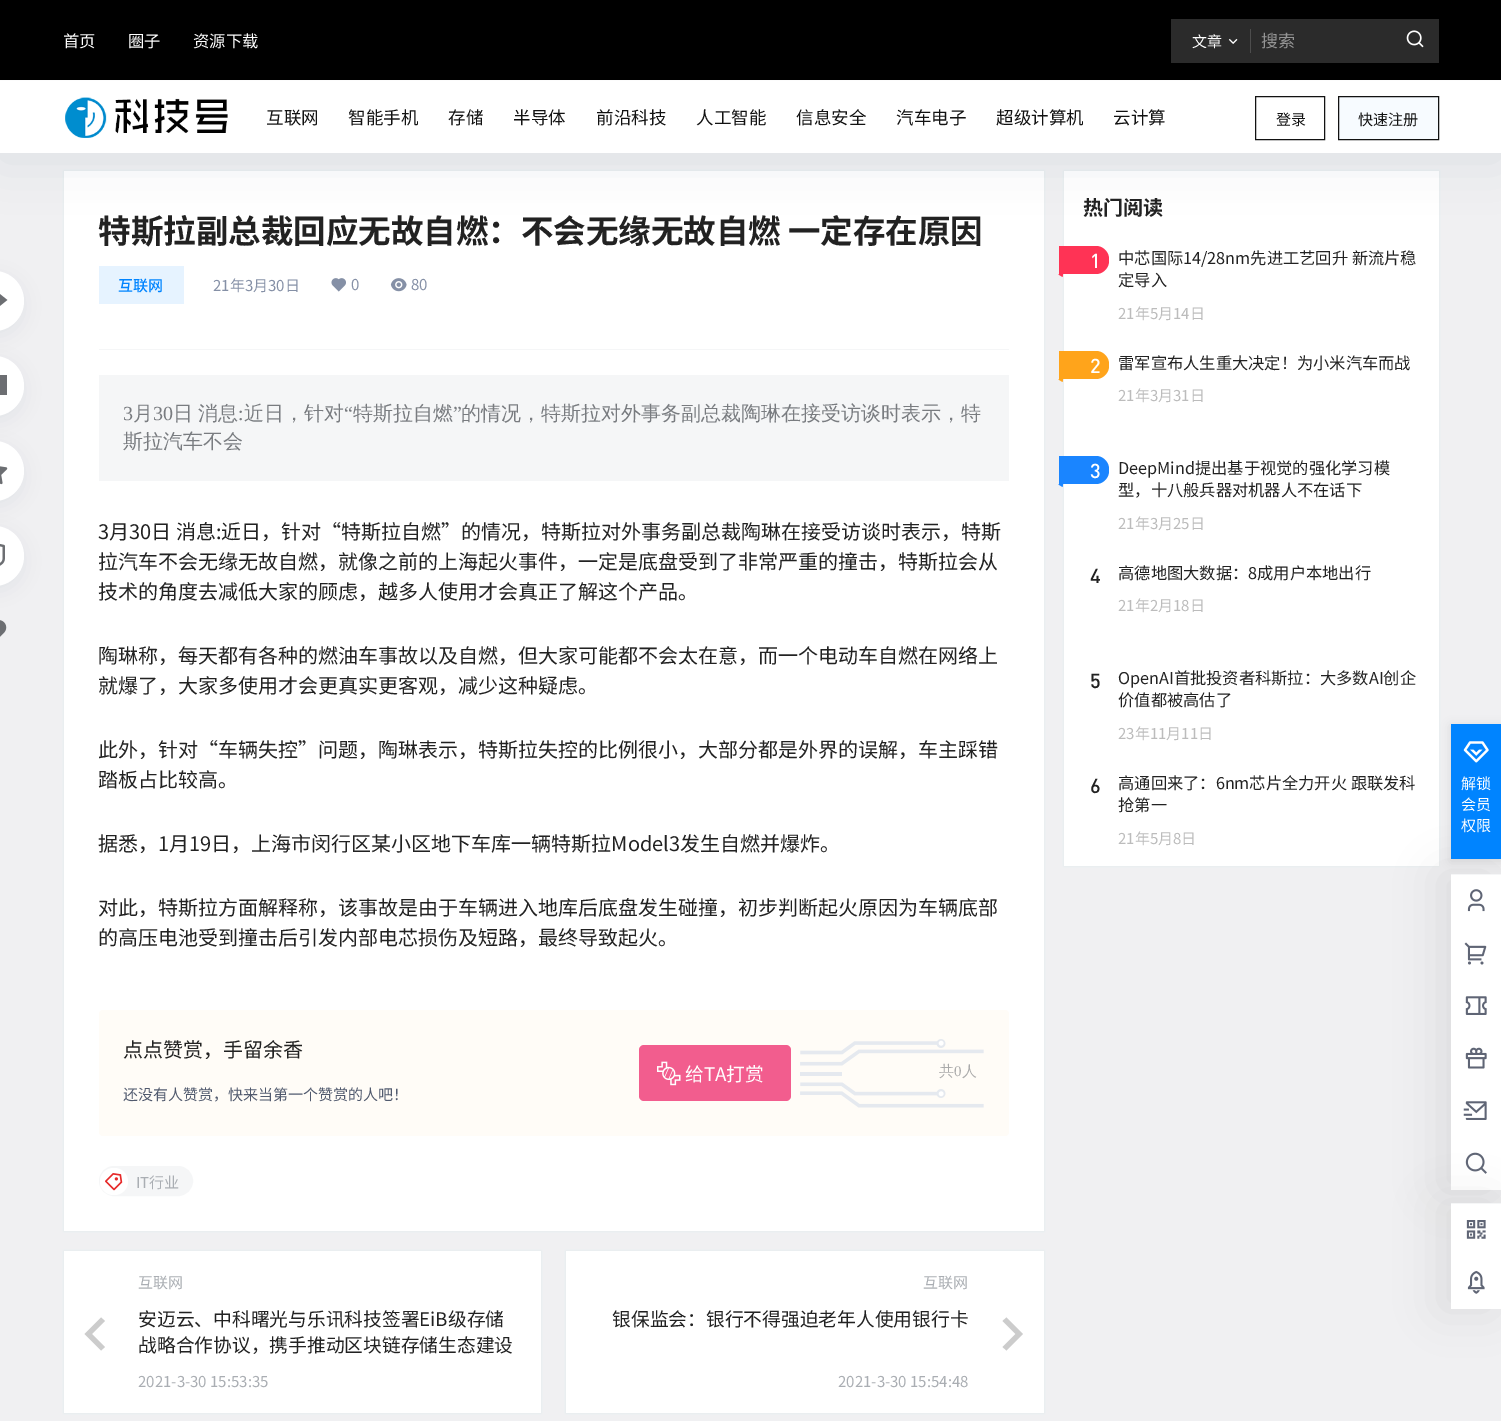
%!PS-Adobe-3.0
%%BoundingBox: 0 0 1501 1421
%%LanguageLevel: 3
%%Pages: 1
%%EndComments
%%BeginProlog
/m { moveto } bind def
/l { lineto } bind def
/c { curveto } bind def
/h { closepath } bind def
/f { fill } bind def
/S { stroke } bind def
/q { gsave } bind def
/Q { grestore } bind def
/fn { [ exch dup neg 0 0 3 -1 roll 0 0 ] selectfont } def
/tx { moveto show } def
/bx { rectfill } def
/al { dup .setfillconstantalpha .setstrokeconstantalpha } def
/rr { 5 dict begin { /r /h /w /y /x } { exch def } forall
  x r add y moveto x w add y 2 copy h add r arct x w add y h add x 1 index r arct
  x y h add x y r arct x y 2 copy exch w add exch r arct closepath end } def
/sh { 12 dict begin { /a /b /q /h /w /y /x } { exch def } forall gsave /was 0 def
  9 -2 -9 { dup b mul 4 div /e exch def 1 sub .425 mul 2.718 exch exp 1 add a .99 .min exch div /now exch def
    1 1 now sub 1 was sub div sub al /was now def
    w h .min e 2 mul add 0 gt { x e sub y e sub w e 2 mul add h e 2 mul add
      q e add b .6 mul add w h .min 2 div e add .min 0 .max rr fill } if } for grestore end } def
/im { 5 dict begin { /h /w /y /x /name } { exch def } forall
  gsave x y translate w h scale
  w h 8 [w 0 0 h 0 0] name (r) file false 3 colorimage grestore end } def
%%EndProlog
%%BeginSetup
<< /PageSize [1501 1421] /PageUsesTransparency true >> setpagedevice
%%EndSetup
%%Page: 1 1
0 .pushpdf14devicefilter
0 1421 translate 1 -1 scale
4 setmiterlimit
0.941 0.941 0.949 setrgbcolor
0 0 1501 1421 bx
0.384 0.486 0.6 setrgbcolor
64 171 980 1060 0 1 0.1 sh
1 setgray
64 171 980 1060 bx
0.384 0.486 0.6 setrgbcolor
1064 171 375 695 0 1 0.1 sh
1 setgray
1064 171 375 695 bx
0.067 0.227 0.365 setrgbcolor
0 6 1501 153 0 25 0.1 sh
0 setgray
0 0 1501 80 bx
/NotoSansCJKSC-Regular 16.25 fn
1 setgray
(首页) 63 47 tx
(圈子) 128 47 tx
(资源下载) 193 47 tx
0.169 setgray
1171 19 268 44 bx
0.302 setgray
1250 29 1 24 bx
/NotoSansCJKSC-Regular 15 fn
1 setgray
(文章) 1192 47 tx
(image0.raw) 1228 38 10 6 im
/NotoSansCJKSC-Regular 17 fn
0.584 setgray
(搜索) 1261 47 tx
(image1.raw) 1406 30 18 18 im
1 setgray
0 81 1501 72 bx
0.988 setgray
0 80 1501 1 bx
(image2.raw) 65 97 163 41 im
/NotoSansCJKSC-Regular 17.5 fn
0.071 setgray
(互联网) 266 124 tx
(智能手机) 348 124 tx
(存储) 448 124 tx
(半导体) 513 124 tx
(前沿科技) 596 124 tx
(人工智能) 696 124 tx
(信息安全) 796 124 tx
(汽车电子) 896 124 tx
(超级计算机) 996 124 tx
(云计算) 1113 124 tx
1255.5 96.5 69 43 rectstroke
/NotoSansCJKSC-Regular 15 fn
(登录) 1276 125 tx
0.969 0.984 1 setrgbcolor
1338.5 96.5 m 1438.5 96.5 l 1438.5 139.5 l 1338.5 139.5 l h q f Q
0.071 setgray
S
(快速注册) 1358 125 tx
0.051 0.153 0.357 setrgbcolor
-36 276 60 60 30 10 0.06 sh
1 setgray
-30 271 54 60 30 rr f
(image3.raw) 0 294 8 12 im
0.051 0.153 0.357 setrgbcolor
-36 361 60 60 30 10 0.06 sh
1 setgray
-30 356 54 60 30 rr f
0.424 0.431 0.447 setrgbcolor
0 375 7 20 bx
0.051 0.153 0.357 setrgbcolor
-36 446 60 60 30 10 0.06 sh
1 setgray
-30 441 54 60 30 rr f
(image4.raw) 0 466 8 19 im
(image6.raw) 0 620 7 17 im
0.051 0.153 0.357 setrgbcolor
-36 531 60 60 30 10 0.06 sh
1 setgray
-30 526 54 60 30 rr f
(image5.raw) 0 544 5 22 im
0.961 0.965 0.969 setrgbcolor
99 349 910 1 bx
/NotoSansCJKSC-Bold 32.5 fn
0.133 setgray
(特斯拉副总裁回应无故自燃：不会无缘无故自燃 一定存在原因) 98 243 tx
0.902 0.953 1 setrgbcolor
99 266 85 38 bx
/NotoSansCJKSC-Medium 15 fn
0 0.518 1 setrgbcolor
(互联网) 118 291 tx
/NotoSansCJKSC-Regular 15 fn
0.522 0.565 0.651 setrgbcolor
(21年3月30日) 213 291 tx
(image7.raw) 331 278 15 14 im
(0) 351 290 tx
(image8.raw) 390 278 17 14 im
(80) 411 290 tx
0.961 0.965 0.969 setrgbcolor
99 375 910 106 bx
/LiberationSerif-Regular 20 fn
0.475 0.486 0.502 setrgbcolor
(3) 123 420 tx
/WenQuanYiZenHei-Medium 20 fn
(月) 133 420 tx
/LiberationSerif-Regular 20 fn
(30) 153 420 tx
/WenQuanYiZenHei-Medium 20 fn
173 420 m -1 0 32 (日 消息) widthshow
(近日，针对) 244 420 tx
/LiberationSerif-Regular 20 fn
(“) 344 420 tx
/WenQuanYiZenHei-Medium 20 fn
(特斯拉自燃) 353 420 tx
/LiberationSerif-Regular 20 fn
(”) 453 420 tx
/WenQuanYiZenHei-Medium 20 fn
(的情况，特斯拉对外事务副总裁陶琳在接受访谈时表示，特) 461 420 tx
/LiberationSerif-Regular 20 fn
(:) 238 420 tx
/WenQuanYiZenHei-Medium 20 fn
(斯拉汽车不会) 123 448 tx
/NotoSansCJKSC-Regular 20 fn
0.133 setgray
(3月30日 消息:近日，针对“特斯拉自燃”的情况，特斯拉对外事务副总裁陶琳在接受访谈时表示，特斯) 98 539 tx
(拉汽车不会无缘无故自燃，就像之前的上海起火事件，一定是底盘受到了非常严重的撞击，特斯拉会从) 98 569 tx
(技术的角度去减低大家的顾虑，越多人使用才会真正了解这个产品。) 98 599 tx
(陶琳称，每天都有各种的燃油车事故以及自燃，但大家可能都不会太在意，而一个电动车自燃在网络上) 98 663 tx
(就爆了，大家多使用才会更真实更客观，减少这种疑虑。) 98 693 tx
(此外，针对“车辆失控”问题，陶琳表示，特斯拉失控的比例很小，大部分都是外界的误解，车主踩错) 98 757 tx
(踏板占比较高。) 98 787 tx
(据悉，1月19日，上海市闵行区某小区地下车库一辆特斯拉Model3发生自燃并爆炸。) 98 851 tx
(对此，特斯拉方面解释称，该事故是由于车辆进入地库后底盘发生碰撞，初步判断起火原因为车辆底部) 98 915 tx
(的高压电池受到撞击后引发内部电芯损伤及短路，最终导致起火。) 98 945 tx
1 0.988 0.969 setrgbcolor
99 1010 910 126 4 rr f
0.133 setgray
(点点赞赏，手留余香) 123 1057 tx
0.949 0.365 0.557 setrgbcolor
639 1045 152 56 5 rr f
(image9.raw) 657 1061 24 25 im
/NotoSansCJKSC-Regular 18.75 fn
1 setgray
(给TA打赏) 685 1081 tx
(image10.raw) 800 1039 184 69 im
/WenQuanYiZenHei-Medium 15 fn
0.667 setgray
(共) 939 1076 tx
/LiberationSerif-Regular 15 fn
(0) 954 1076 tx
/WenQuanYiZenHei-Medium 15 fn
(人) 962 1076 tx
/NotoSansCJKSC-Regular 15 fn
0.318 0.353 0.431 setrgbcolor
(还没有人赞赏，快来当第一个赞赏的人吧！) 123 1100 tx
0.961 0.965 0.969 setrgbcolor
99.5 1166.5 93 29 14.5 rr q f Q
S
1 setgray
100 1168 28 27 13.5 rr f
(image11.raw) 105 1173 18 18 im
0.667 0.682 0.702 setrgbcolor
(IT行业) 136 1188 tx
0.384 0.486 0.6 setrgbcolor
64 1251 477 162 0 1 0.1 sh
1 setgray
64 1251 477 162 bx
0.667 0.682 0.702 setrgbcolor
(互联网) 138 1288 tx
0.8 setgray
92 1334 m 105 1347 l 101 1350.5 l 84.5 1334 l 101 1317.5 l 105 1321 l h f
/NotoSansCJKSC-Regular 18.75 fn
0.133 setgray
(安迈云、中科曙光与乐讯科技签署EiB级存储) 138 1326 tx
(战略合作协议，携手推动区块链存储生态建设) 138 1352 tx
/NotoSansCJKSC-Regular 15 fn
0.667 0.682 0.702 setrgbcolor
(2021-3-30 15:53:35) 138 1387 tx
0.384 0.486 0.6 setrgbcolor
566 1251 478 162 0 1 0.1 sh
1 setgray
566 1251 478 162 bx
0.667 0.682 0.702 setrgbcolor
(互联网) 923 1288 tx
/NotoSansCJKSC-Regular 18.75 fn
0.133 setgray
(银保监会：银行不得强迫老年人使用银行卡) 612 1326 tx
0.8 setgray
1015.5 1334 m 1002.5 1321 l 1006.5 1317.5 l 1023 1334 l 1006.5 1350.5 l 1002.5 1347 l h f
/NotoSansCJKSC-Regular 15 fn
0.667 0.682 0.702 setrgbcolor
(2021-3-30 15:54:48) 838 1387 tx
/NotoSansCJKSC-Bold 20 fn
0.133 setgray
(热门阅读) 1083 215 tx
1 0.2 0.333 setrgbcolor
1059 246 m 1096 246 l 1103 246 1109 252 1109 259 c 1109 261 l 1109 268 1103 274 1096 274 c 1059 274 l h f
/DIN-Medium 20 fn
1 setgray
(1) 1090 268 tx
1 0.2 0.333 setrgbcolor
1062.5 277 m 1058.5 274.5 l 1063.5 271.5 l h f
/NotoSansCJKSC-Regular 16.25 fn
0.133 setgray
(中芯国际14/28nm先进工艺回升 新流片稳) 1118 264 tx
(定导入) 1118 286 tx
/NotoSansCJKSC-Regular 15 fn
0.737 setgray
(21年5月14日) 1118 319 tx
1 0.643 0.106 setrgbcolor
1059 351 m 1096 351 l 1103 351 1109 357 1109 364 c 1109 366 l 1109 373 1103 379 1096 379 c 1059 379 l h f
/DIN-Medium 20 fn
1 setgray
(2) 1090 373 tx
1 0.643 0.106 setrgbcolor
1062.5 382 m 1058.5 379.5 l 1063.5 376.5 l h f
/NotoSansCJKSC-Regular 16.25 fn
0.133 setgray
(雷军宣布人生重大决定！为小米汽车而战) 1118 369 tx
/NotoSansCJKSC-Regular 15 fn
0.737 setgray
(21年3月31日) 1118 401 tx
0.102 0.522 1 setrgbcolor
1059 456 m 1096 456 l 1103 456 1109 462 1109 469 c 1109 471 l 1109 478 1103 484 1096 484 c 1059 484 l h f
/DIN-Medium 20 fn
1 setgray
(3) 1090 478 tx
0.102 0.522 1 setrgbcolor
1062.5 487 m 1058.5 484.5 l 1063.5 481.5 l h f
/NotoSansCJKSC-Regular 16.25 fn
0.133 setgray
(DeepMind提出基于视觉的强化学习模) 1118 474 tx
(型，十八般兵器对机器人不在话下) 1118 496 tx
/NotoSansCJKSC-Regular 15 fn
0.737 setgray
(21年3月25日) 1118 529 tx
/DIN-Medium 20 fn
0.133 setgray
(4) 1090 583 tx
/NotoSansCJKSC-Regular 16.25 fn
(高德地图大数据：8成用户本地出行) 1118 579 tx
/NotoSansCJKSC-Regular 15 fn
0.737 setgray
(21年2月18日) 1118 611 tx
/DIN-Medium 20 fn
0.133 setgray
(5) 1090 688 tx
/NotoSansCJKSC-Regular 16.25 fn
(OpenAI首批投资者科斯拉：大多数AI创企) 1118 684 tx
(价值都被高估了) 1118 706 tx
/NotoSansCJKSC-Regular 15 fn
0.737 setgray
(23年11月11日) 1118 739 tx
/DIN-Medium 20 fn
0.133 setgray
(6) 1090 793 tx
/NotoSansCJKSC-Regular 16.25 fn
(高通回来了：6nm芯片全力开火 跟联发科) 1118 789 tx
(抢第一) 1118 811 tx
/NotoSansCJKSC-Regular 15 fn
0.737 setgray
(21年5月8日) 1118 844 tx
0.71 setgray
1441 874 50 316 0 22 0.32 sh
1 setgray
1451 875 50 315 bx
0.961 0.965 0.969 setrgbcolor
1451 874 50 1 bx
0 setgray
1451 726 50 135 0 5 0.1 sh
0 0.518 1 setrgbcolor
1451 724 50 135 bx
(image12.raw) 1463 741 26 22 im
1 setgray
(解锁) 1461 789 tx
(会员) 1461 810 tx
(权限) 1461 831 tx
(image13.raw) 1467 889 18 23 im
(image14.raw) 1464 942 23 23 im
(image15.raw) 1465 996 22 19 im
(image16.raw) 1465 1047 22 22 im
(image17.raw) 1463 1101 24 19 im
(image18.raw) 1465 1152 22 22 im
0.71 setgray
1441 1203 50 106 0 22 0.32 sh
1 setgray
1451 1204 50 105 bx
0.961 0.965 0.969 setrgbcolor
1451 1203 50 1 bx
(image19.raw) 1466 1220 20 19 im
(image20.raw) 1467 1270 18 24 im
.poppdf14devicefilter showpage
%%EOF
